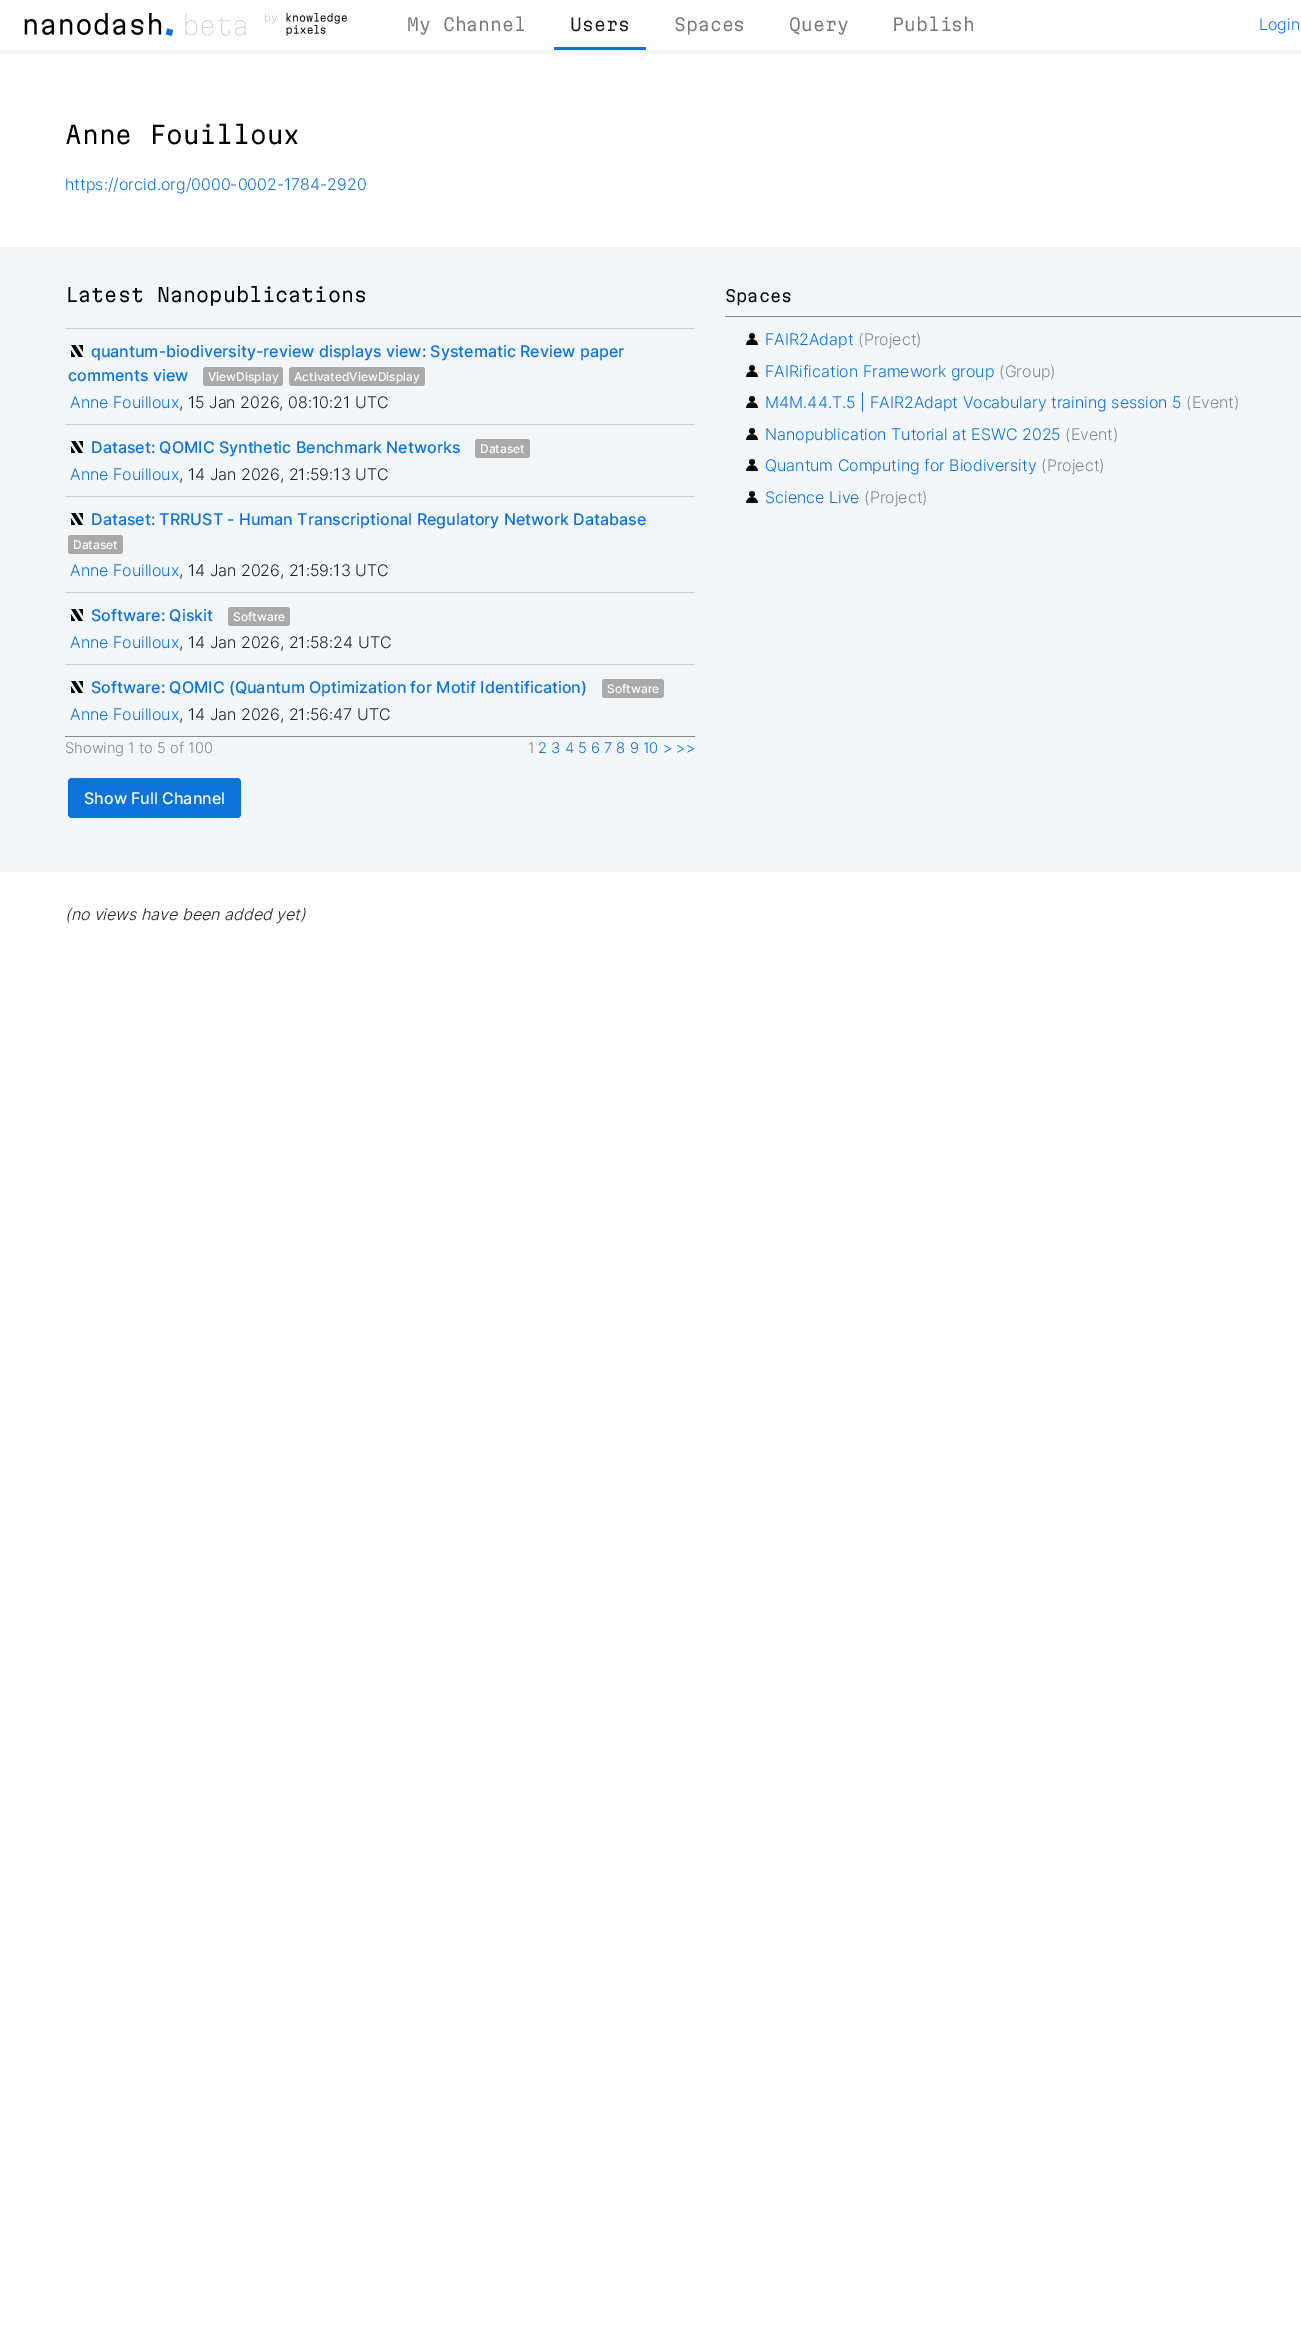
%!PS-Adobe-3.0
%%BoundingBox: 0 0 1301 2349
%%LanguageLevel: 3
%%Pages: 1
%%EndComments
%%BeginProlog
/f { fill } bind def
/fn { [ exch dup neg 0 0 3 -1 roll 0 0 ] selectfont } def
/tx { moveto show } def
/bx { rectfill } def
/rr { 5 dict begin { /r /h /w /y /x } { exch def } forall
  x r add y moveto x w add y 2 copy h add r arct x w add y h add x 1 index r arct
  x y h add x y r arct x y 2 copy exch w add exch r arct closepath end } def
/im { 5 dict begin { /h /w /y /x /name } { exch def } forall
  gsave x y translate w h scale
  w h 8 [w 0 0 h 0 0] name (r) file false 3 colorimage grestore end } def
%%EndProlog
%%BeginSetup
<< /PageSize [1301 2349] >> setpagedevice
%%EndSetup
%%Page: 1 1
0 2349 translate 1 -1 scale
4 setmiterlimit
1 setgray
0 0 1301 2349 bx
0.953 0.965 0.976 setrgbcolor
0 50 1301 4 bx
(image0.raw) 24 13 222 23 im
(image1.raw) 265 13 82 23 im
/MartianMono-Light 17 fn
0.463 0.475 0.482 setrgbcolor
(My Channel) 407 31 tx
0.043 0.451 0.855 setrgbcolor
554 47 92 3 bx
0.102 0.122 0.137 setrgbcolor
(Users) 570 31 tx
0.463 0.475 0.482 setrgbcolor
(Spaces) 674 31 tx
(Query) 789 31 tx
(Publish) 892 31 tx
/Inter-Light 16 fn
0.043 0.451 0.855 setrgbcolor
(Login) 1259 30 tx
/MartianMono-Light 24 fn
0 setgray
(Anne Fouilloux) 65 144 tx
/Inter-Light 16 fn
0.043 0.451 0.855 setrgbcolor
(https://orcid.org/0000-0002-1784-2920) 65 190 tx
0.953 0.965 0.976 setrgbcolor
0 247 1301 625 bx
/MartianMono-Light 18.75 fn
0 setgray
(Latest Nanopublications) 65 302 tx
0.8 setgray
65 328 630 1 bx
(image2.raw) 71 345 12 12 im
/Inter-Medium 16 fn
0.043 0.451 0.855 setrgbcolor
(quantum-biodiversity-review displays view: Systematic Review paper) 91 357 tx
(comments view) 68 381 tx
0.667 setgray
203 367 80 19 3 rr f
/Inter-Medium 12 fn
1 setgray
(ViewDisplay) 208 381 tx
0.667 setgray
289 367 136 19 3 rr f
1 setgray
(ActivatedViewDisplay) 294 381 tx
/Inter-Light 16 fn
0.043 0.451 0.855 setrgbcolor
(Anne Fouilloux) 70 408 tx
0.133 setgray
(, 15 Jan 2026, 08:10:21 UTC) 179 408 tx
0.8 setgray
65 424 630 1 bx
(image2.raw) 71 441 12 12 im
/Inter-Medium 16 fn
0.043 0.451 0.855 setrgbcolor
(Dataset: QOMIC Synthetic Benchmark Networks) 91 453 tx
0.667 setgray
475 439 55 19 3 rr f
/Inter-Medium 12 fn
1 setgray
(Dataset) 480 453 tx
/Inter-Light 16 fn
0.043 0.451 0.855 setrgbcolor
(Anne Fouilloux) 70 480 tx
0.133 setgray
(, 14 Jan 2026, 21:59:13 UTC) 179 480 tx
0.8 setgray
65 496 630 1 bx
(image2.raw) 71 513 12 12 im
/Inter-Medium 16 fn
0.043 0.451 0.855 setrgbcolor
(Dataset: TRRUST - Human Transcriptional Regulatory Network Database) 91 525 tx
0.667 setgray
68 535 55 19 3 rr f
/Inter-Medium 12 fn
1 setgray
(Dataset) 73 549 tx
/Inter-Light 16 fn
0.043 0.451 0.855 setrgbcolor
(Anne Fouilloux) 70 576 tx
0.133 setgray
(, 14 Jan 2026, 21:59:13 UTC) 179 576 tx
0.8 setgray
65 592 630 1 bx
(image2.raw) 71 609 12 12 im
/Inter-Medium 16 fn
0.043 0.451 0.855 setrgbcolor
(Software: Qiskit) 91 621 tx
0.667 setgray
228 607 62 19 3 rr f
/Inter-Medium 12 fn
1 setgray
(Software) 233 621 tx
/Inter-Light 16 fn
0.043 0.451 0.855 setrgbcolor
(Anne Fouilloux) 70 648 tx
0.133 setgray
(, 14 Jan 2026, 21:58:24 UTC) 179 648 tx
0.8 setgray
65 664 630 1 bx
(image2.raw) 71 681 12 12 im
/Inter-Medium 16 fn
0.043 0.451 0.855 setrgbcolor
(Software: QOMIC \(Quantum Optimization for Motif Identification\)) 91 693 tx
0.667 setgray
602 679 62 19 3 rr f
/Inter-Medium 12 fn
1 setgray
(Software) 607 693 tx
/Inter-Light 16 fn
0.043 0.451 0.855 setrgbcolor
(Anne Fouilloux) 70 720 tx
0.133 setgray
(, 14 Jan 2026, 21:56:47 UTC) 179 720 tx
0.533 setgray
65 736 630 1 bx
/Inter-Light 14.75 fn
(Showing 1 to 5 of 100) 65 753 tx
(1) 528 753 tx
0.043 0.451 0.855 setrgbcolor
(2 3 4 5 6 7 8 9 10 > >>) 538 753 tx
68 778 173 40 4 rr f
/Inter-Medium 16 fn
1 setgray
(Show Full Channel) 84 804 tx
0.533 setgray
725 316 576 1 bx
/MartianMono-Light 16 fn
0 setgray
(Spaces) 725 302 tx
(image3.raw) 746 333 12 12 im
/Inter-Light 16 fn
0.043 0.451 0.855 setrgbcolor
(FAIR2Adapt) 765 345 tx
0.533 setgray
(\(Project\)) 858 345 tx
(image3.raw) 746 365 12 12 im
0.043 0.451 0.855 setrgbcolor
(FAIRification Framework group) 765 377 tx
0.533 setgray
(\(Group\)) 999 377 tx
(image3.raw) 746 396 12 12 im
0.043 0.451 0.855 setrgbcolor
(M4M.44.T.5 | FAIR2Adapt Vocabulary training session 5) 765 408 tx
0.533 setgray
(\(Event\)) 1186 408 tx
(image3.raw) 746 428 12 12 im
0.043 0.451 0.855 setrgbcolor
(Nanopublication Tutorial at ESWC 2025) 765 440 tx
0.533 setgray
(\(Event\)) 1065 440 tx
(image3.raw) 746 459 12 12 im
0.043 0.451 0.855 setrgbcolor
(Quantum Computing for Biodiversity) 765 471 tx
0.533 setgray
(\(Project\)) 1041 471 tx
(image3.raw) 746 491 12 12 im
0.043 0.451 0.855 setrgbcolor
(Science Live) 765 503 tx
0.533 setgray
(\(Project\)) 864 503 tx
/Inter-LightItalic 16 fn
0.133 setgray
(\(no views have been added yet\)) 65 920 tx
showpage
%%EOF
